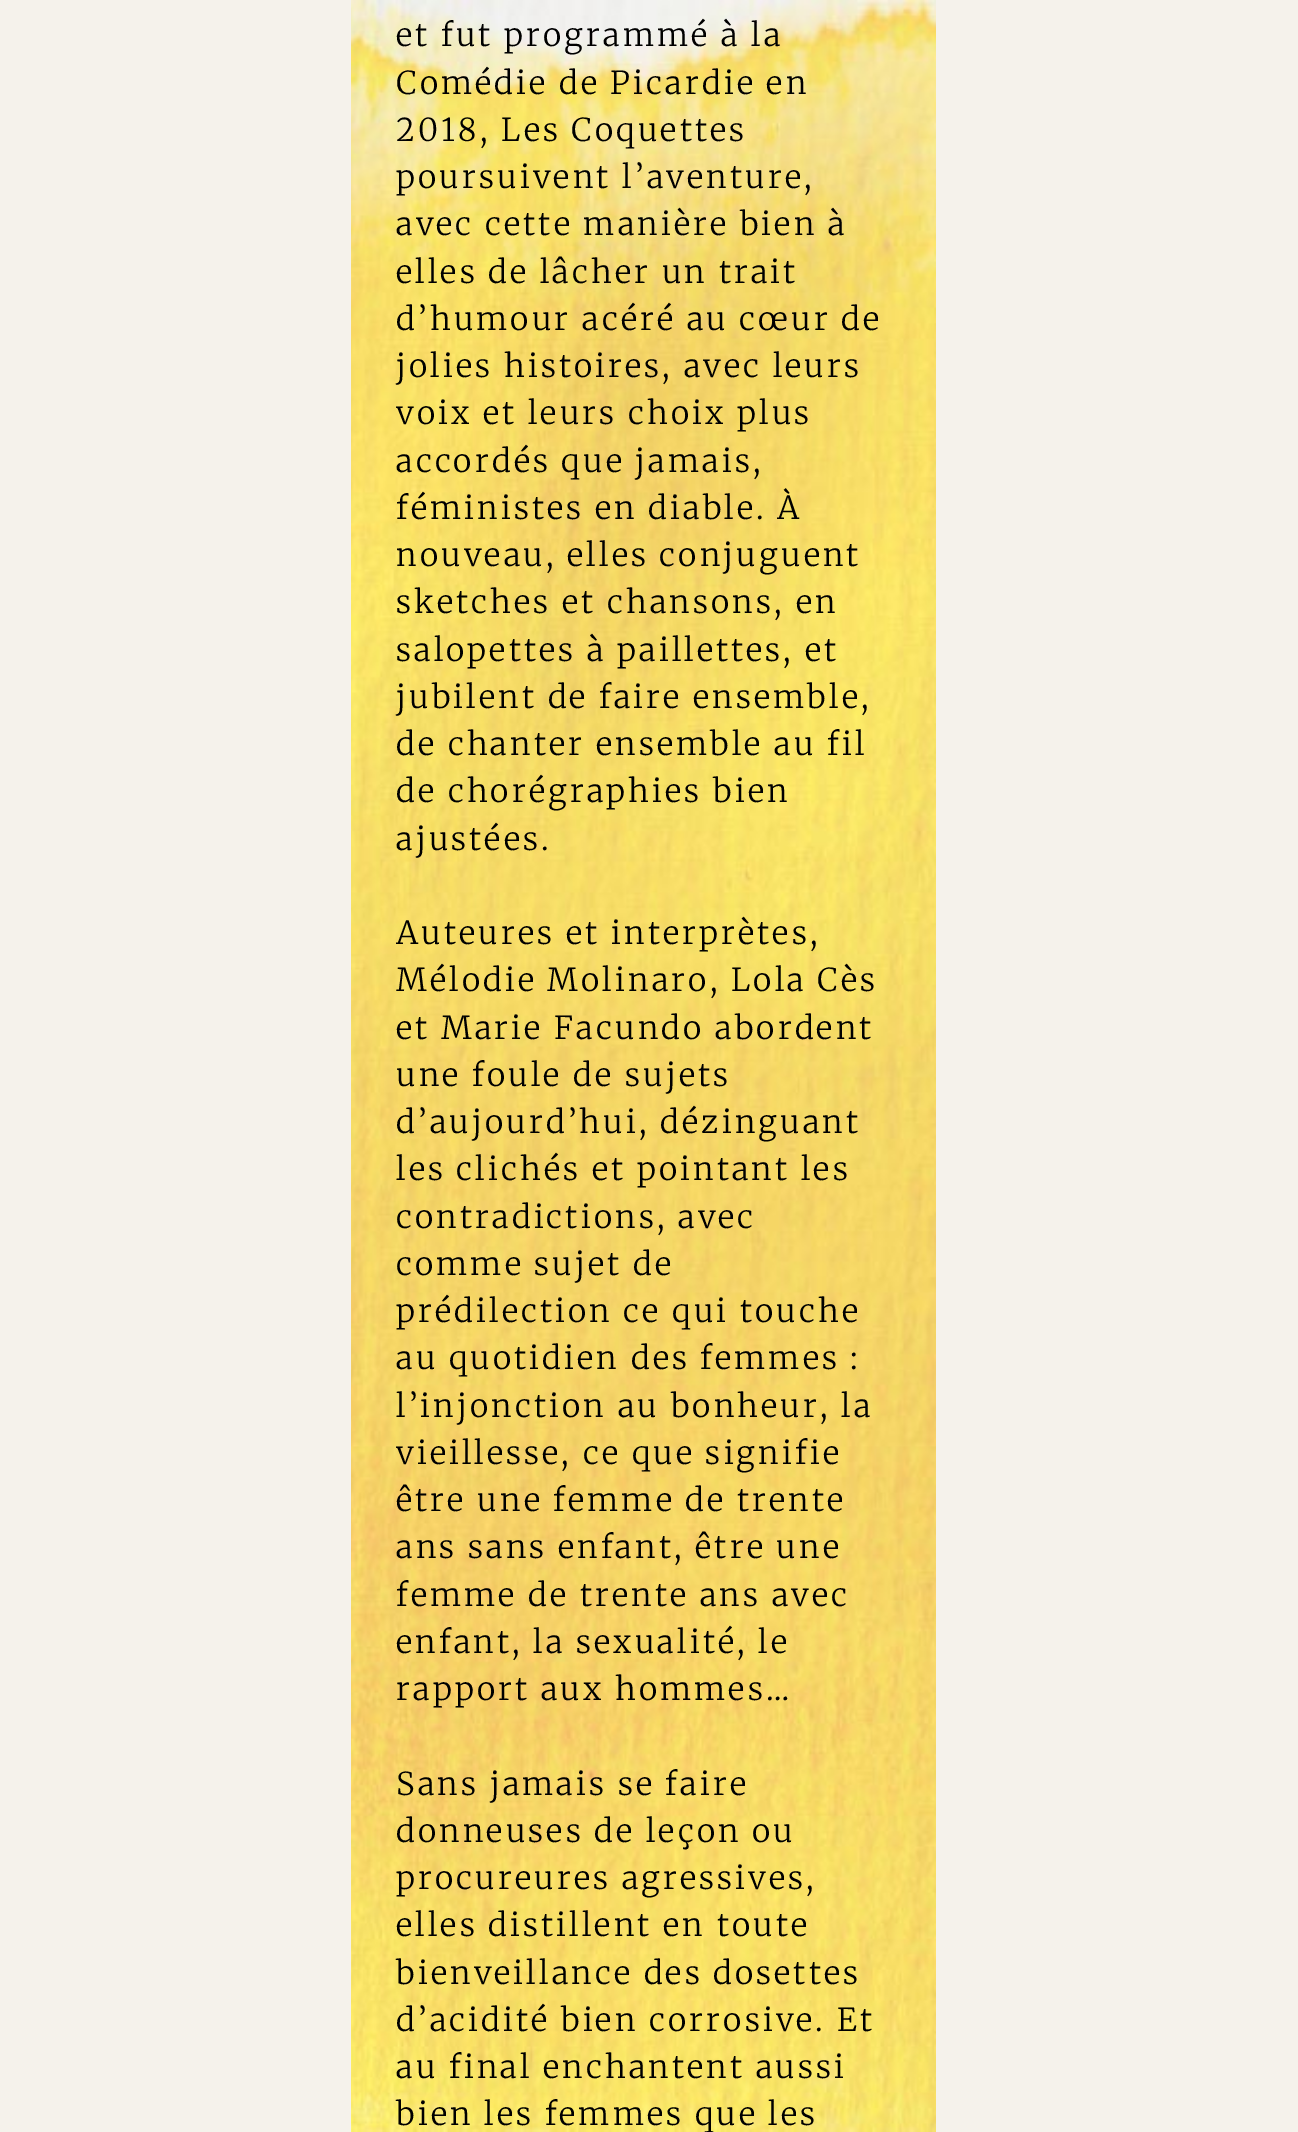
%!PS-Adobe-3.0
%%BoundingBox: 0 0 1298 2132
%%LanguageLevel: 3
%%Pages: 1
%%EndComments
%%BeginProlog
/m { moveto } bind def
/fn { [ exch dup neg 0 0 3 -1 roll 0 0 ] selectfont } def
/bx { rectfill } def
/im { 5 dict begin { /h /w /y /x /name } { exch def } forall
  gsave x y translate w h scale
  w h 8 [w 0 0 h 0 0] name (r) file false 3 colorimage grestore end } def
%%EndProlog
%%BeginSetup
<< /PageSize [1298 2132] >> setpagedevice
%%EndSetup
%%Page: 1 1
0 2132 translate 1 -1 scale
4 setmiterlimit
0.961 0.949 0.922 setrgbcolor
0 0 1298 2132 bx
(image0.raw) 351 0 585 2132 im
/Merriweather-Light 31.5 fn
0 setgray
396 46 m 3.15 0 (et fut programmé à la) ashow
396 94 m 3.15 0 (Comédie de Picardie en) ashow
396 141 m 3.15 0 (2018, Les Coquettes) ashow
396 188 m 3.15 0 (poursuivent l’aventure,) ashow
396 235 m 3.15 0 (avec cette manière bien à) ashow
396 283 m 3.15 0 (elles de lâcher un trait) ashow
396 330 m 3.15 0 (d’humour acéré au cœur de) ashow
396 377 m 3.15 0 (jolies histoires, avec leurs) ashow
396 424 m 3.15 0 (voix et leurs choix plus) ashow
396 472 m 3.15 0 (accordés que jamais,) ashow
396 519 m 3.15 0 (féministes en diable. À) ashow
396 566 m 3.15 0 (nouveau, elles conjuguent) ashow
396 613 m 3.15 0 (sketches et chansons, en) ashow
396 661 m 3.15 0 (salopettes à paillettes, et) ashow
396 708 m 3.15 0 (jubilent de faire ensemble,) ashow
396 755 m 3.15 0 (de chanter ensemble au fil) ashow
396 802 m 3.15 0 (de chorégraphies bien) ashow
396 850 m 3.15 0 (ajustées.) ashow
396 944 m 3.15 0 (Auteures et interprètes,) ashow
396 991 m 3.15 0 (Mélodie Molinaro, Lola Cès) ashow
396 1039 m 3.15 0 (et Marie Facundo abordent) ashow
396 1086 m 3.15 0 (une foule de sujets) ashow
396 1133 m 3.15 0 (d’aujourd’hui, dézinguant) ashow
396 1180 m 3.15 0 (les clichés et pointant les) ashow
396 1228 m 3.15 0 (contradictions, avec) ashow
396 1275 m 3.15 0 (comme sujet de) ashow
396 1322 m 3.15 0 (prédilection ce qui touche) ashow
396 1369 m 3.15 0 (au quotidien des femmes :) ashow
396 1417 m 3.15 0 (l’injonction au bonheur, la) ashow
396 1464 m 3.15 0 (vieillesse, ce que signifie) ashow
396 1511 m 3.15 0 (être une femme de trente) ashow
396 1558 m 3.15 0 (ans sans enfant, être une) ashow
396 1606 m 3.15 0 (femme de trente ans avec) ashow
396 1653 m 3.15 0 (enfant, la sexualité, le) ashow
396 1700 m 3.15 0 (rapport aux hommes…) ashow
396 1795 m 3.15 0 (Sans jamais se faire) ashow
396 1842 m 3.15 0 (donneuses de leçon ou) ashow
396 1889 m 3.15 0 (procureures agressives,) ashow
396 1936 m 3.15 0 (elles distillent en toute) ashow
396 1984 m 3.15 0 (bienveillance des dosettes) ashow
396 2031 m 3.15 0 (d’acidité bien corrosive. Et) ashow
396 2078 m 3.15 0 (au final enchantent aussi) ashow
396 2125 m 3.15 0 (bien les femmes que les) ashow
showpage
%%EOF
